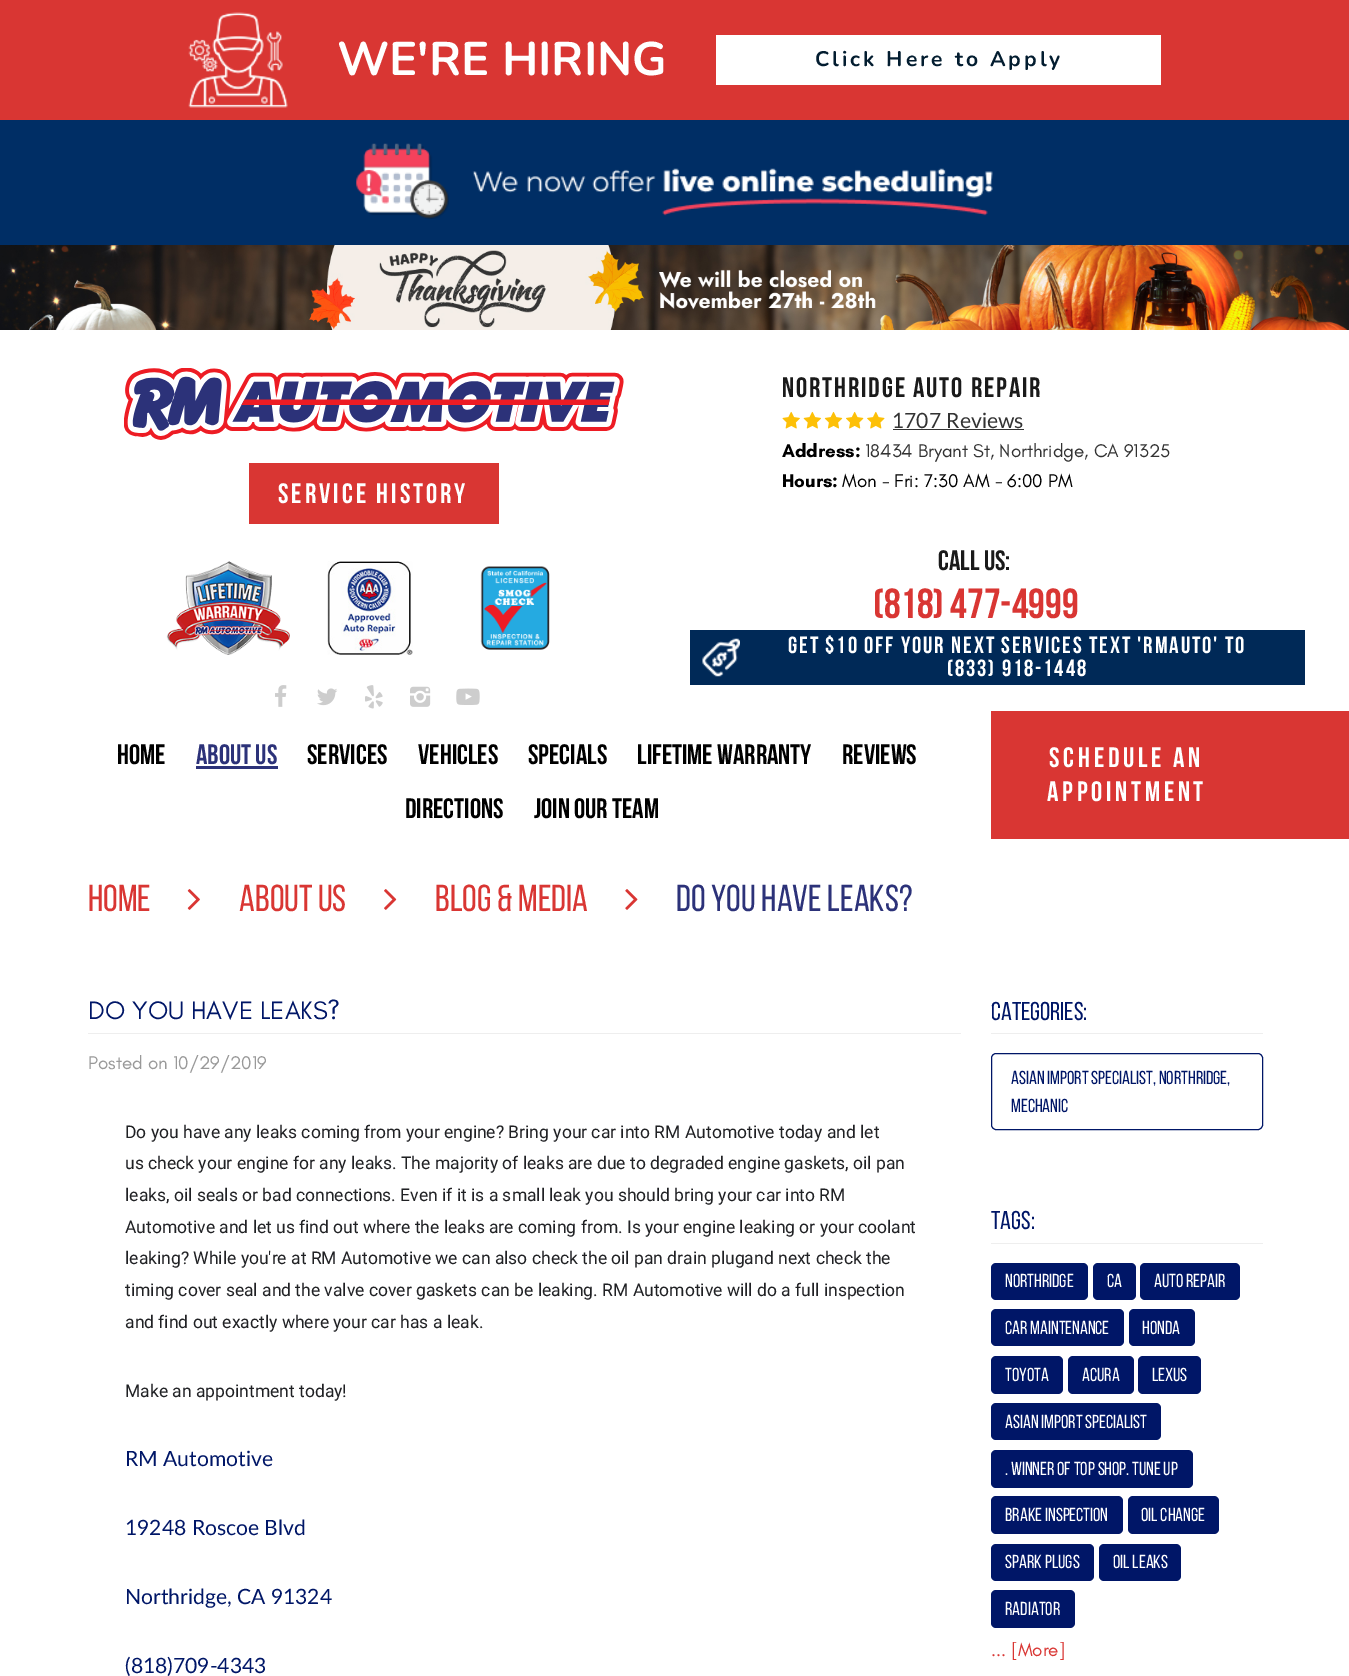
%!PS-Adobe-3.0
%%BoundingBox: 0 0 1349 1676
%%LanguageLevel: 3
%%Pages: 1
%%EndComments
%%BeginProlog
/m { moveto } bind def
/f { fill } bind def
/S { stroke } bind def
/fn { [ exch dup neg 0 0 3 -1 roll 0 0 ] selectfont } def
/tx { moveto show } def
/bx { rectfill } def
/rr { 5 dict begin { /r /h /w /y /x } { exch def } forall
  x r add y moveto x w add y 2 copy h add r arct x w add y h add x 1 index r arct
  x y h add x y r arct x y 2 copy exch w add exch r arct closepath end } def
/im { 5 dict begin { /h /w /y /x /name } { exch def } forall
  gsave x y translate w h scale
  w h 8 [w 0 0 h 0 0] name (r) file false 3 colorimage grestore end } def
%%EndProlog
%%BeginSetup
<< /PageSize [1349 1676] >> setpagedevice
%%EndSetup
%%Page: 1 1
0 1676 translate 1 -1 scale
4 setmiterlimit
1 setgray
0 0 1349 1676 bx
0.851 0.212 0.2 setrgbcolor
0 0 1349 120 bx
(image0.raw) 188 12 100 96 im
/Nunito-Bold 47 fn
1 setgray
(WE'RE HIRING) 337 75 tx
716 35 445 50 bx
/Nunito-Bold 21.1 fn
0.012 0.114 0.188 setrgbcolor
815 66 m 3 0 (Click Here to Apply) ashow
0 0.18 0.396 setrgbcolor
0 120 1349 125 bx
(image1.raw) 356 143 637 76 im
(image2.raw) 0 245 1349 85 im
/BebasNeue-Bold 28.1 fn
0.102 setgray
782 397 m 1.9 0 (NORTHRIDGE AUTO REPAIR) ashow
(image3.raw) 782 411 103 18 im
/Lato-Regular 21.1 fn
0.2 setgray
(1707 Reviews) 892 428 tx
893 429 131 1 bx
/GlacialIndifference-Bold 18.75 fn
0 setgray
(Address:) 782 457 tx
/GlacialIndifference-Regular 18.75 fn
0.2 setgray
(18434 Bryant St, Northridge, CA 91325) 865 457 tx
/GlacialIndifference-Bold 18.75 fn
0 setgray
(Hours:) 782 487 tx
/GlacialIndifference-Regular 18.75 fn
(Mon - Fri: 7:30 AM - 6:00 PM) 842 487 tx
(image4.raw) 124 368 500 72 im
0.851 0.212 0.2 setrgbcolor
249 463 250 61 bx
/BebasNeue-Bold 28.1 fn
1 setgray
278 503 m 3 0 (SERVICE HISTORY) ashow
(image5.raw) 166 561 124 94 im
(image6.raw) 327 561 86 94 im
(image7.raw) 480 566 70 84 im
(image8.raw) 275 685 12 22 im
(image9.raw) 317 688 21 18 im
(image10.raw) 365 685 18 24 im
(image11.raw) 410 686 21 21 im
(image12.raw) 456 688 24 17 im
0.102 setgray
(CALL US:) 938 570 tx
/BebasNeue-Bold 42 fn
0.851 0.212 0.2 setrgbcolor
(\(818\) 477-4999) 873 618 tx
0 0.161 0.341 setrgbcolor
690 630 615 55 bx
(image13.raw) 702 638 38 39 im
/BebasNeue-Bold 23.4 fn
1 setgray
788 653 m 1.9 0 (GET $10 OFF YOUR NEXT SERVICES TEXT 'RMAUTO' TO) ashow
947 676 m 1.9 0 (\(833\) 918-1448) ashow
/BebasNeue-Bold 28.1 fn
0 setgray
(Home) 117 764 tx
0.173 0.196 0.475 setrgbcolor
(About Us) 196 764 tx
196 766 82 3 bx
0 setgray
(Services) 307 764 tx
(VEHICLES) 418 764 tx
(Specials) 528 764 tx
(Lifetime Warranty) 637 764 tx
(Reviews) 842 764 tx
(Directions) 405 818 tx
(Join Our Team) 534 818 tx
0.851 0.212 0.2 setrgbcolor
991 711 358 128 bx
1 setgray
1049 767 m 3.75 0 (SCHEDULE AN) ashow
1047 801 m 3.75 0 (APPOINTMENT) ashow
/BebasNeue-Regular 37.5 fn
0.851 0.212 0.2 setrgbcolor
(HOME) 88 911 tx
(image14.raw) 187 889 13 21 im
(ABOUT US) 239 911 tx
(image15.raw) 384 889 13 21 im
(BLOG & MEDIA) 435 911 tx
(image16.raw) 625 889 13 21 im
0.173 0.196 0.475 setrgbcolor
(DO YOU HAVE LEAKS?) 676 911 tx
0.933 setgray
88 1033 873 1 bx
/GlacialIndifference-Regular 25.75 fn
0 0.086 0.404 setrgbcolor
(DO YOU HAVE LEAKS?) 88 1019 tx
/GlacialIndifference-Regular 18.75 fn
0.6 setgray
(Posted on 10/29/2019) 88 1069 tx
/Roboto-Regular 17.5 fn
0.125 0.129 0.141 setrgbcolor
(Do you have any leaks coming from your engine? Bring your car into RM Automotive today and let) 125 1138 tx
(us check your engine for any leaks. The majority of leaks are due to degraded engine gaskets, oil pan) 125 1169 tx
(leaks, oil seals or bad connections. Even if it is a small leak you should bring your car into RM) 125 1201 tx
(Automotive and let us find out where the leaks are coming from. Is your engine leaking or your coolant) 125 1233 tx
(leaking? While you're at RM Automotive we can also check the oil pan drain plugand next check the) 125 1264 tx
(timing cover seal and the valve cover gaskets can be leaking. RM Automotive will do a full inspection) 125 1296 tx
(and find out exactly where your car has a leak.) 125 1328 tx
(Make an appointment today!) 125 1397 tx
/Lato-Regular 21.1 fn
0 0.086 0.404 setrgbcolor
(RM Automotive) 125 1466 tx
(19248 Roscoe Blvd) 125 1535 tx
(Northridge, CA 91324) 125 1604 tx
(\(818\)709-4343) 125 1673 tx
0.933 setgray
991 1033 272 1 bx
/BebasNeue-Regular 25.75 fn
0 0.086 0.404 setrgbcolor
(CATEGORIES:) 991 1020 tx
991.5 1053.5 271 76 4.5 rr S
/BebasNeue-Regular 18.75 fn
(Asian Import Specialist, Northridge,) 1011 1084 tx
(Mechanic) 1011 1112 tx
0.933 setgray
991 1243 272 1 bx
/BebasNeue-Regular 25.75 fn
0 0.086 0.404 setrgbcolor
(TAGS:) 991 1229 tx
991 1263 97 37 5 rr f
/BebasNeue-Regular 18.75 fn
1 setgray
(Northridge) 1005 1287 tx
0 0.086 0.404 setrgbcolor
1093 1263 43 37 5 rr f
1 setgray
(Ca) 1107 1287 tx
0 0.086 0.404 setrgbcolor
1140 1263 100 37 5 rr f
1 setgray
(Auto Repair) 1154 1287 tx
0 0.086 0.404 setrgbcolor
991 1309 133 37 5 rr f
1 setgray
(Car Maintenance) 1005 1334 tx
0 0.086 0.404 setrgbcolor
1129 1309 66 37 5 rr f
1 setgray
(Honda) 1142 1334 tx
0 0.086 0.404 setrgbcolor
991 1356 72 38 5 rr f
1 setgray
(Toyota) 1005 1381 tx
0 0.086 0.404 setrgbcolor
1068 1356 66 38 5 rr f
1 setgray
(Acura) 1082 1381 tx
0 0.086 0.404 setrgbcolor
1138 1356 63 38 5 rr f
1 setgray
(Lexus) 1152 1381 tx
0 0.086 0.404 setrgbcolor
991 1403 170 37 5 rr f
1 setgray
(Asian Import Specialist) 1005 1428 tx
0 0.086 0.404 setrgbcolor
991 1450 202 38 5 rr f
1 setgray
(. Winner of Top Shop. Tune Up) 1005 1475 tx
0 0.086 0.404 setrgbcolor
991 1496 132 38 5 rr f
1 setgray
(Brake Inspection) 1005 1521 tx
0 0.086 0.404 setrgbcolor
1128 1496 91 38 5 rr f
1 setgray
(Oil Change) 1141 1521 tx
0 0.086 0.404 setrgbcolor
991 1544 103 37 5 rr f
1 setgray
(Spark Plugs) 1005 1568 tx
0 0.086 0.404 setrgbcolor
1099 1544 82 37 5 rr f
1 setgray
(Oil Leaks) 1113 1568 tx
0 0.086 0.404 setrgbcolor
991 1590 84 38 5 rr f
1 setgray
(Radiator) 1005 1615 tx
/GlacialIndifference-Regular 18.75 fn
0.851 0.212 0.2 setrgbcolor
(... [More]) 991 1656 tx
showpage
%%EOF
